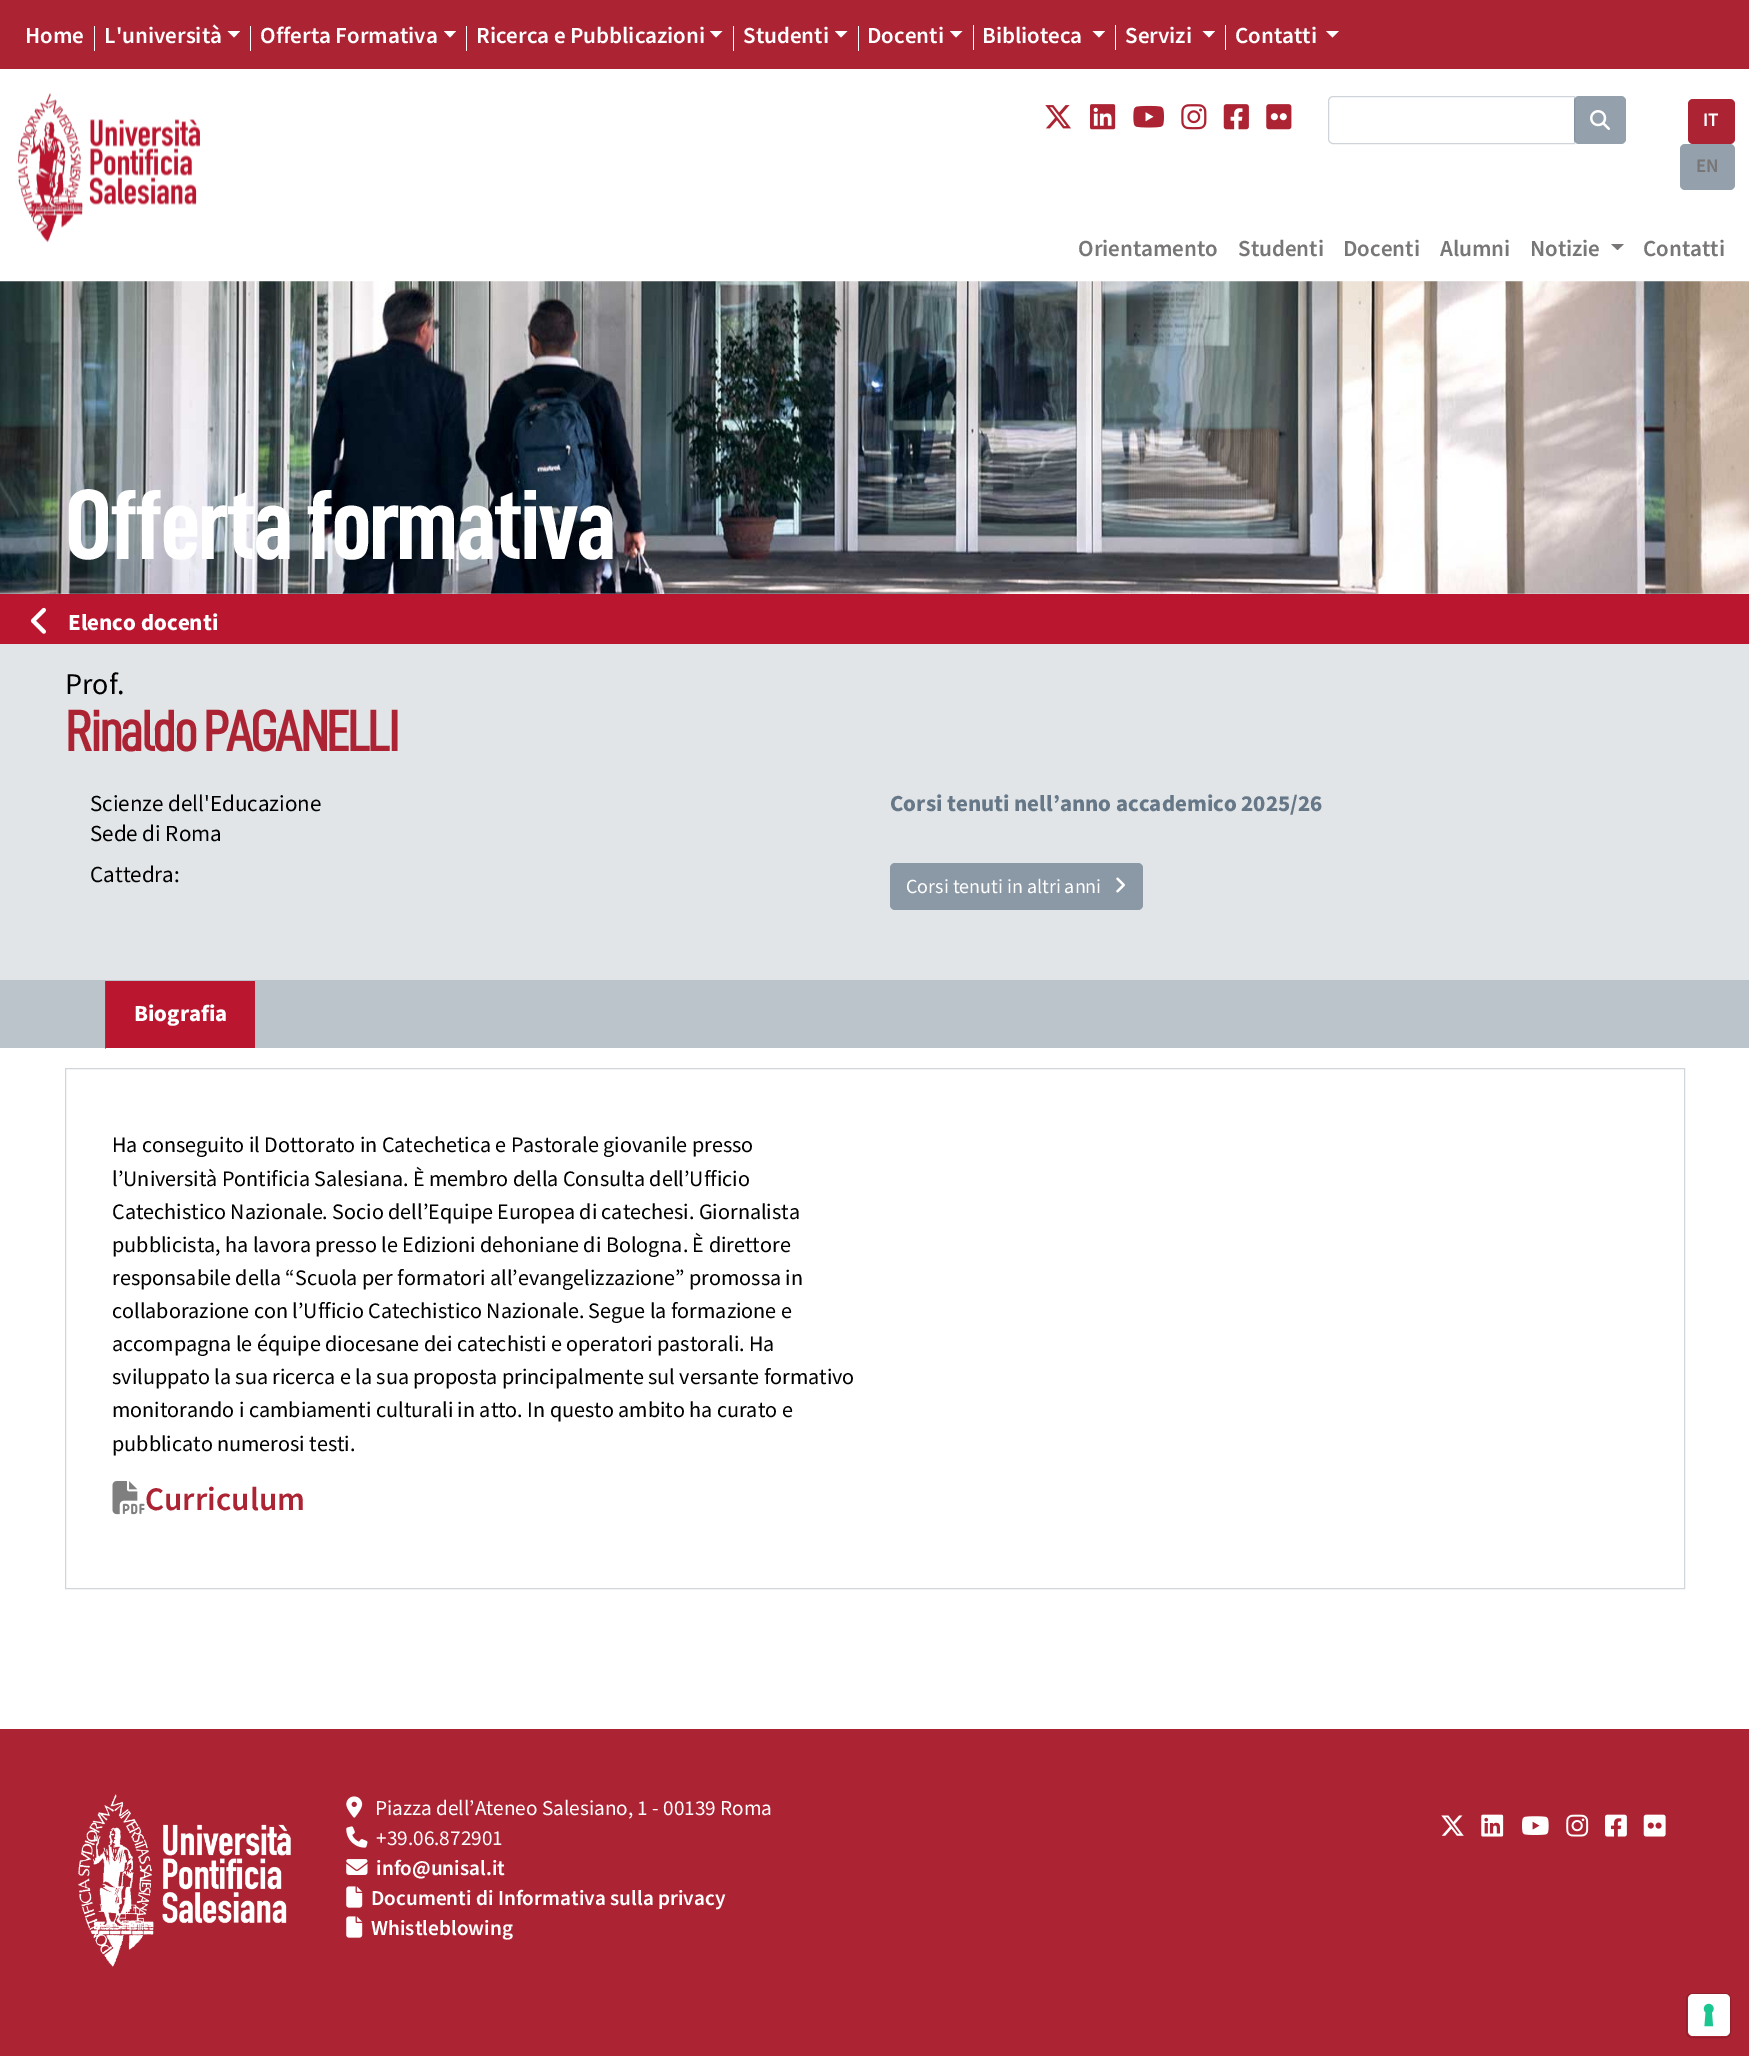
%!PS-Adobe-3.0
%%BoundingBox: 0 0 1749 2056
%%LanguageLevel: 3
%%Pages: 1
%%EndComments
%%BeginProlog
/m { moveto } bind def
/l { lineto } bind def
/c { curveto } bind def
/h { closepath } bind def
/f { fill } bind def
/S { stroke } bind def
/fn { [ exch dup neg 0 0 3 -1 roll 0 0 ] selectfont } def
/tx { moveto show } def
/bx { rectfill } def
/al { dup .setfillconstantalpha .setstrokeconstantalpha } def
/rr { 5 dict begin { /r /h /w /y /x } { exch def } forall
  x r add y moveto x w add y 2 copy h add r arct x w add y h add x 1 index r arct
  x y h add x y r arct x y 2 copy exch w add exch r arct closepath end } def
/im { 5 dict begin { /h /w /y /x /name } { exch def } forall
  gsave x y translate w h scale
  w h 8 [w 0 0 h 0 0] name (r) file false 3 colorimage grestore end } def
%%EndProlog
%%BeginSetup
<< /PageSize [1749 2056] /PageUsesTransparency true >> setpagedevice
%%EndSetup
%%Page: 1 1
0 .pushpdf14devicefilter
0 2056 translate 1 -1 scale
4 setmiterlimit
1 setgray
0 0 1749 2056 bx
0.675 0.141 0.2 setrgbcolor
0 0 1749 69 bx
/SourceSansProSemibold-SemiBold 23 fn
1 setgray
(Home) 25 43 tx
94 26 1 25 bx
(L'università) 104 43 tx
227.5 31 m 240 31 l 234 37.5 l h f
250 26 1 25 bx
(Offerta Formativa) 260 43 tx
444 31 m 456 31 l 450 37.5 l h f
466 26 1 25 bx
(Ricerca e Pubblicazioni) 476 43 tx
710 31 m 722.5 31 l 716 37.5 l h f
733 26 1 25 bx
(Studenti) 743 43 tx
835 31 m 847.5 31 l 841 37.5 l h f
858 26 1 25 bx
(Docenti) 867 43 tx
950 31 m 962.5 31 l 956 37.5 l h f
973 25 1 25 bx
(Biblioteca) 982 43 tx
1092.5 31 m 1105 31 l 1099 37.5 l h f
1115 25 1 25 bx
(Servizi) 1125 43 tx
1202.5 31 m 1215 31 l 1209 37.5 l h f
1225 25 1 25 bx
(Contatti) 1235 43 tx
1326 31 m 1339 31 l 1332.5 37.5 l h f
(image0.raw) 18 93 182 150 im
(image1.raw) 1045 105 26 24 im
(image2.raw) 1090 104 26 26 im
(image3.raw) 1133 105 31 23 im
(image4.raw) 1181 104 26 26 im
(image5.raw) 1223 104 26 26 im
(image6.raw) 1266 104 26 26 im
0.808 0.831 0.855 setrgbcolor
1333 96.5 m 1574.5 96.5 l 1574.5 143.5 l 1333 143.5 l 1330.5 143.5 1328.5 141.5 1328.5 139 c 1328.5 101 l 1328.5 98.5 1330.5 96.5 1333 96.5 c h S
0.7 al
0.4 0.467 0.533 setrgbcolor
1574 96 52 48 5 rr f
1 al
(image7.raw) 1590 110 20 20 im
0.675 0.141 0.2 setrgbcolor
1688 99 47 45 5 rr f
/SourceSansProSemibold-SemiBold 19 fn
1 setgray
(IT) 1703 126 tx
0.58 0.627 0.675 setrgbcolor
1680 144 55 46 5 rr f
0.471 0.463 0.467 setrgbcolor
(EN) 1696 172 tx
/SourceSansProSemibold-SemiBold 23 fn
(Orientamento) 1078 256 tx
(Studenti) 1238 256 tx
(Docenti) 1343 256 tx
(Alumni) 1440 256 tx
(Notizie) 1530 256 tx
1611 244 m 1624 244 l 1617.5 250 l h f
(Contatti) 1643 256 tx
(image8.raw) 0 281 1749 313 im
/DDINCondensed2-Bold 100 fn
1 setgray
65 559 m -3 0 (Offerta formativa) ashow
0.729 0.086 0.184 setrgbcolor
0 594 1749 50 bx
(image9.raw) 30 607 16 27 im
/SourceSansPro-Bold 23 fn
1 setgray
(Elenco docenti) 68 630 tx
0.882 0.898 0.91 setrgbcolor
0 644 1749 336 bx
/SourceSansPro-Regular 30 fn
0 setgray
(Prof.) 65 694 tx
/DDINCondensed-Bold 57.5 fn
0.675 0.141 0.2 setrgbcolor
65 751 m -2.25 0 (Rinaldo PAGANELLI) ashow
/SourceSansPro-Regular 23 fn
0 setgray
(Scienze dell'Educazione) 90 811 tx
(Sede di Roma) 90 841 tx
(Cattedra:) 90 882 tx
/SourceSansPro-Bold 23 fn
0.4 0.467 0.533 setrgbcolor
(Corsi tenuti nell’anno accademico 2025/26) 890 811 tx
0.545 0.596 0.647 setrgbcolor
890 863 253 47 5 rr f
/SourceSansPro-Regular 20 fn
1 setgray
(Corsi tenuti in altri anni) 906 893 tx
(image10.raw) 1116 877 9 16 im
0.737 0.769 0.796 setrgbcolor
0 980 1749 68 bx
0.729 0.086 0.184 setrgbcolor
106 981 149 67 bx
0.631 0.2 0.29 setrgbcolor
105 1049 m 105 981 l 106 981 l 106 1048 l h f
/SourceSansPro-Bold 23 fn
1 setgray
(Biografia) 134 1021 tx
0.82 0.839 0.859 setrgbcolor
65.5 1068.5 1619 520 rectstroke
/SourceSansPro-Regular 22.1 fn
0 setgray
(Ha conseguito il Dottorato in Catechetica e Pastorale giovanile presso) 112 1152 tx
(l’Università Pontificia Salesiana. È membro della Consulta dell’Ufficio) 112 1186 tx
(Catechistico Nazionale. Socio dell’Equipe Europea di catechesi. Giornalista) 112 1219 tx
(pubblicista, ha lavora presso le Edizioni dehoniane di Bologna. È direttore) 112 1252 tx
(responsabile della “Scuola per formatori all’evangelizzazione” promossa in) 112 1285 tx
(collaborazione con l’Ufficio Catechistico Nazionale. Segue la formazione e) 112 1318 tx
(accompagna le équipe diocesane dei catechisti e operatori pastorali. Ha) 112 1351 tx
(sviluppato la sua ricerca e la sua proposta principalmente sul versante formativo) 112 1384 tx
(monitorando i cambiamenti culturali in atto. In questo ambito ha curato e) 112 1417 tx
(pubblicato numerosi testi.) 112 1451 tx
(image11.raw) 112 1481 33 34 im
/SourceSansProSemibold-SemiBold 33 fn
0.675 0.141 0.2 setrgbcolor
(Curriculum) 145 1510 tx
0 1729 1749 327 bx
(image12.raw) 78 1794 213 173 im
(image13.raw) 346 1796 17 22 im
/SourceSansPro-Regular 21.25 fn
1 setgray
(Piazza dell’Ateneo Salesiano, 1 - 00139 Roma) 375 1815 tx
(image14.raw) 346 1826 22 22 im
(+39.06.872901) 376 1845 tx
(image15.raw) 346 1859 22 16 im
/SourceSansProSemibold-SemiBold 21.25 fn
(info@unisal.it) 376 1875 tx
(image16.raw) 346 1886 17 22 im
(Documenti di Informativa sulla privacy) 371 1905 tx
(image16.raw) 346 1916 17 22 im
(Whistleblowing) 371 1935 tx
(image17.raw) 1441 1815 23 21 im
(image18.raw) 1481 1814 23 23 im
(image19.raw) 1522 1816 27 19 im
(image20.raw) 1566 1814 23 23 im
(image21.raw) 1605 1814 22 23 im
(image22.raw) 1643 1814 23 23 im
0.573 0.122 0.169 setrgbcolor
1686.5 1993.5 44 44 5.5 rr S
1 setgray
1688 1994 42 42 5 rr f
(image23.raw) 1703 2003 11 24 im
.poppdf14devicefilter showpage
%%EOF
